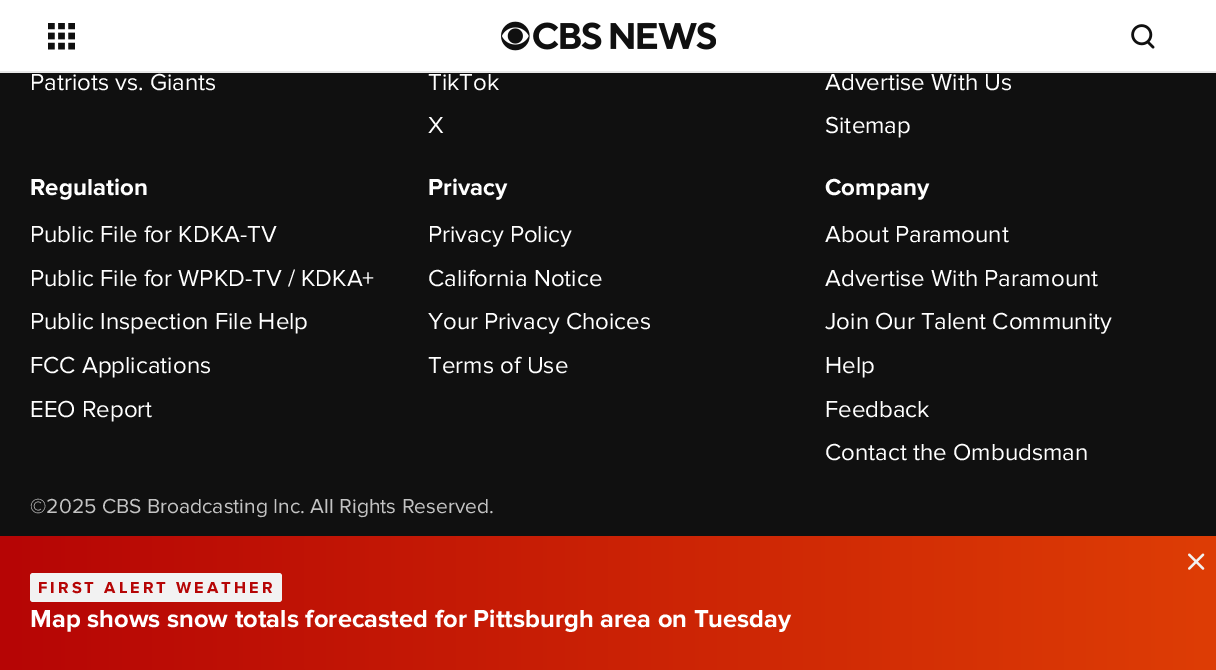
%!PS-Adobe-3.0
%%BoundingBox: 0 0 1216 670
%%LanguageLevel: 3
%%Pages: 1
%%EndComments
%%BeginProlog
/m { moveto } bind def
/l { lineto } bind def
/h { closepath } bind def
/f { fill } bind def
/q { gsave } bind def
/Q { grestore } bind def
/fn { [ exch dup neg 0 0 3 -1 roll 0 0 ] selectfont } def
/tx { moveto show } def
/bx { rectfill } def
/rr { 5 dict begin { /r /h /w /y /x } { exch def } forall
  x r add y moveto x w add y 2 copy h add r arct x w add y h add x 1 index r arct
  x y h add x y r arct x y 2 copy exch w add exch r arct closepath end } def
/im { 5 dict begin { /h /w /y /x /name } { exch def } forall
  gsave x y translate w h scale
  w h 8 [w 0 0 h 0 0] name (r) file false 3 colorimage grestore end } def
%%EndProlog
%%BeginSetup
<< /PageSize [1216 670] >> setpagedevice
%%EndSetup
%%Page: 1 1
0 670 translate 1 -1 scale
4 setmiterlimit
0.063 setgray
0 0 1216 670 bx
1 setgray
0 0 1216 71 bx
0.91 setgray
0 71 1216 2 bx
(image0.raw) 48 23 27 27 im
(image1.raw) 501 21 215 30 im
(image2.raw) 1131 24 24 25 im
/ProximaNova-Regular 24 fn
1 setgray
(Patriots vs. Giants) 30 90 tx
(TikTok) 428 90 tx
(X) 428 133 tx
(Advertise With Us) 825 90 tx
(Sitemap) 825 133 tx
/ProximaNova-Bold 24 fn
(Regulation) 30 195 tx
/ProximaNova-Regular 24 fn
(Public File for KDKA-TV) 30 242 tx
(Public File for WPKD-TV / KDKA+) 30 286 tx
(Public Inspection File Help) 30 329 tx
(FCC Applications) 30 373 tx
(EEO Report) 30 417 tx
/ProximaNova-Bold 24 fn
(Privacy) 428 195 tx
/ProximaNova-Regular 24 fn
(Privacy Policy) 428 242 tx
(California Notice) 428 286 tx
(Your Privacy Choices) 428 329 tx
(Terms of Use) 428 373 tx
/ProximaNova-Bold 24 fn
(Company) 825 195 tx
/ProximaNova-Regular 24 fn
(About Paramount) 825 242 tx
(Advertise With Paramount) 825 286 tx
(Join Our Talent Community) 825 329 tx
(Help) 825 373 tx
(Feedback) 825 417 tx
(Contact the Ombudsman) 825 460 tx
/ProximaNova-Regular 21 fn
0.765 setgray
(©2025 CBS Broadcasting Inc. All Rights Reserved.) 30 513 tx
q 0 536 m 1216 536 l 1216 670 l 0 670 l h clip newpath
<< /ShadingType 2 /ColorSpace /DeviceRGB /Coords [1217 603 0 603] /Extend [true true] /Function << /FunctionType 2 /Domain [0 1] /C0 [0.871 0.239 0.02] /C1 [0.714 0.02 0.02] /N 1 >> >> shfill Q
(image3.raw) 1188 553 17 17 im
0.949 setgray
30 573 252 29 3 rr f
/ProximaNova-Bold 16.5 fn
0.714 0.02 0.02 setrgbcolor
38 593 m 3 0 (FIRST ALERT WEATHER) ashow
/ProximaNova-Bold 25.5 fn
1 setgray
(Map shows snow totals forecasted for Pittsburgh area on Tuesday) 30 627 tx
showpage
%%EOF
